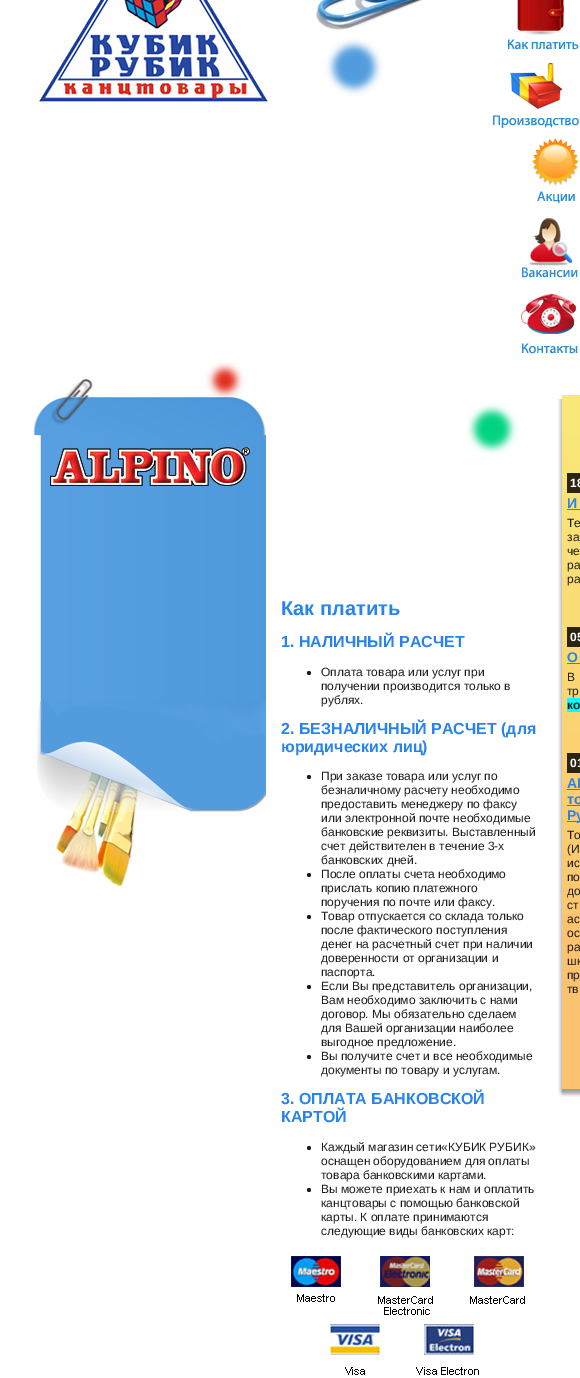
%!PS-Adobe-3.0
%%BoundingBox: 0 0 580 1378
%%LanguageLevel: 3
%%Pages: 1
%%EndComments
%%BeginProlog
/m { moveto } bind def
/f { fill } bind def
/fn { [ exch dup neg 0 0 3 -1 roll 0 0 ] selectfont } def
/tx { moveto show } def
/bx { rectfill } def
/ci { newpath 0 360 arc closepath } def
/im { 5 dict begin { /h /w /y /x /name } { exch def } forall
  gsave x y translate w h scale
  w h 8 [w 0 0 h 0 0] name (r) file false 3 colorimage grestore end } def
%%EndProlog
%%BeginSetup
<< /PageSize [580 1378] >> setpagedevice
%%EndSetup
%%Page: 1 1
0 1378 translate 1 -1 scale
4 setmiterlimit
1 setgray
0 0 580 1378 bx
(image0.raw) 39 0 384 102 im
(image1.raw) 508 0 71 50 im
(image2.raw) 493 63 86 65 im
(image3.raw) 532 138 47 66 im
(image4.raw) 522 218 56 60 im
(image5.raw) 521 294 57 60 im
(image6.raw) 33 363 233 72 im
(image7.raw) 40 435 226 266 im
(image8.raw) 50 447 200 39 im
(image9.raw) 37 701 229 186 im
(image10.raw) 466 403 53 52 im
/LiberationSans-Bold 20 fn
0.153 0.514 0.929 setrgbcolor
(Как платить) 281 615 tx
/LiberationSans-Bold 16 fn
(1. НАЛИЧНЫЙ РАСЧЕТ) 281 647 tx
0.114 setgray
309 673 2 ci f
/LiberationSans-Regular 12 fn
(Оплата товара или услуг при) 321 676 tx
(получении производится только в) 321 690 tx
(рублях.) 321 704 tx
/LiberationSans-Bold 16 fn
0.153 0.514 0.929 setrgbcolor
(2. БЕЗНАЛИЧНЫЙ РАСЧЕТ \(для) 281 734 tx
(юридических лиц\)) 281 752 tx
0.114 setgray
309 777 2 ci f
/LiberationSans-Regular 12 fn
(При заказе товара или услуг по) 321 780 tx
(безналичному расчету необходимо) 321 794 tx
(предоставить менеджеру по факсу) 321 808 tx
(или электронной почте необходимые) 321 822 tx
(банковские реквизиты. Выставленный) 321 836 tx
(счет действителен в течение 3-х) 321 850 tx
(банковских дней.) 321 864 tx
309 875 2 ci f
(После оплаты счета необходимо) 321 878 tx
(прислать копию платежного) 321 892 tx
(поручения по почте или факсу.) 321 906 tx
309 917 2 ci f
(Товар отпускается со склада только) 321 920 tx
(после фактического поступления) 321 934 tx
(денег на расчетный счет при наличии) 321 948 tx
(доверенности от организации и) 321 962 tx
(паспорта.) 321 976 tx
309 987 2 ci f
(Если Вы представитель организации,) 321 990 tx
(Вам необходимо заключить с нами) 321 1004 tx
(договор. Мы обязательно сделаем) 321 1018 tx
(для Вашей организации наиболее) 321 1032 tx
(выгодное предложение.) 321 1046 tx
309 1057 2 ci f
(Вы получите счет и все необходимые) 321 1060 tx
(документы по товару и услугам.) 321 1074 tx
/LiberationSans-Bold 16 fn
0.153 0.514 0.929 setrgbcolor
(3. ОПЛАТА БАНКОВСКОЙ) 281 1104 tx
(КАРТОЙ) 281 1122 tx
0.114 setgray
309 1148 2 ci f
/LiberationSans-Regular 12 fn
(Каждый магазин сети«КУБИК РУБИК») 321 1151 tx
(оснащен оборудованием для оплаты) 321 1165 tx
(товара банковскими картами.) 321 1179 tx
309 1190 2 ci f
(Вы можете приехать к нам и оплатить) 321 1193 tx
(канцтовары с помощью банковской) 321 1207 tx
(карты. К оплате принимаются) 321 1221 tx
(следующие виды банковских карт:) 321 1235 tx
(image11.raw) 291 1256 234 119 im
(image12.raw) 558 399 4 690 im
0.976 0.906 0.467 setrgbcolor
562 395 18 33 bx
0.984 0.761 0.435 setrgbcolor
562 914 18 175 bx
(image13.raw) 562 428 18 486 im
0.165 0.145 0.071 setrgbcolor
567 473 13 20 bx
/LiberationSans-Bold 12 fn
1 setgray
(18) 570 487 tx
/LiberationSans-Bold 14 fn
0.153 0.514 0.929 setrgbcolor
(И) 567 508 tx
567 509 13 1 bx
/LiberationSans-Regular 12 fn
0.114 setgray
(Те) 567 527 tx
(за) 567 541 tx
(че) 567 555 tx
(ра) 567 569 tx
(ра) 567 583 tx
0.165 0.145 0.071 setrgbcolor
567 627 13 20 bx
/LiberationSans-Bold 12 fn
1 setgray
(05) 570 641 tx
/LiberationSans-Bold 14 fn
0.153 0.514 0.929 setrgbcolor
(О) 567 662 tx
567 663 13 1 bx
/LiberationSans-Regular 12 fn
0.114 setgray
(В) 567 681 tx
(тр) 567 695 tx
0 1 1 setrgbcolor
567 698 13 14 bx
/LiberationSans-Bold 12 fn
0.114 setgray
(ко) 567 709 tx
0.165 0.145 0.071 setrgbcolor
567 753 13 20 bx
1 setgray
(01) 570 767 tx
/LiberationSans-Bold 14 fn
0.153 0.514 0.929 setrgbcolor
(AL) 567 788 tx
567 789 13 1 bx
(то) 567 804 tx
567 805 13 1 bx
567 821 13 1 bx
(Ру) 567 820 tx
/LiberationSans-Regular 12 fn
0.114 setgray
567 839 m 31 0 32 (То) widthshow
567 853 m 12 0 32 (\(И) widthshow
567 867 m 6 0 32 (ис) widthshow
567 881 m 55 0 32 (по) widthshow
567 895 m 1 0 32 (до) widthshow
567 909 m 12 0 32 (ст) widthshow
567 923 m 57 0 32 (ас) widthshow
567 937 m 4 0 32 (ос) widthshow
567 951 m 3 0 32 (ра) widthshow
567 965 m 16 0 32 (шк) widthshow
567 979 m 30 0 32 (пр) widthshow
(тв) 567 993 tx
(image14.raw) 558 1089 4 8 im
(image15.raw) 562 1089 18 8 im
showpage
%%EOF
